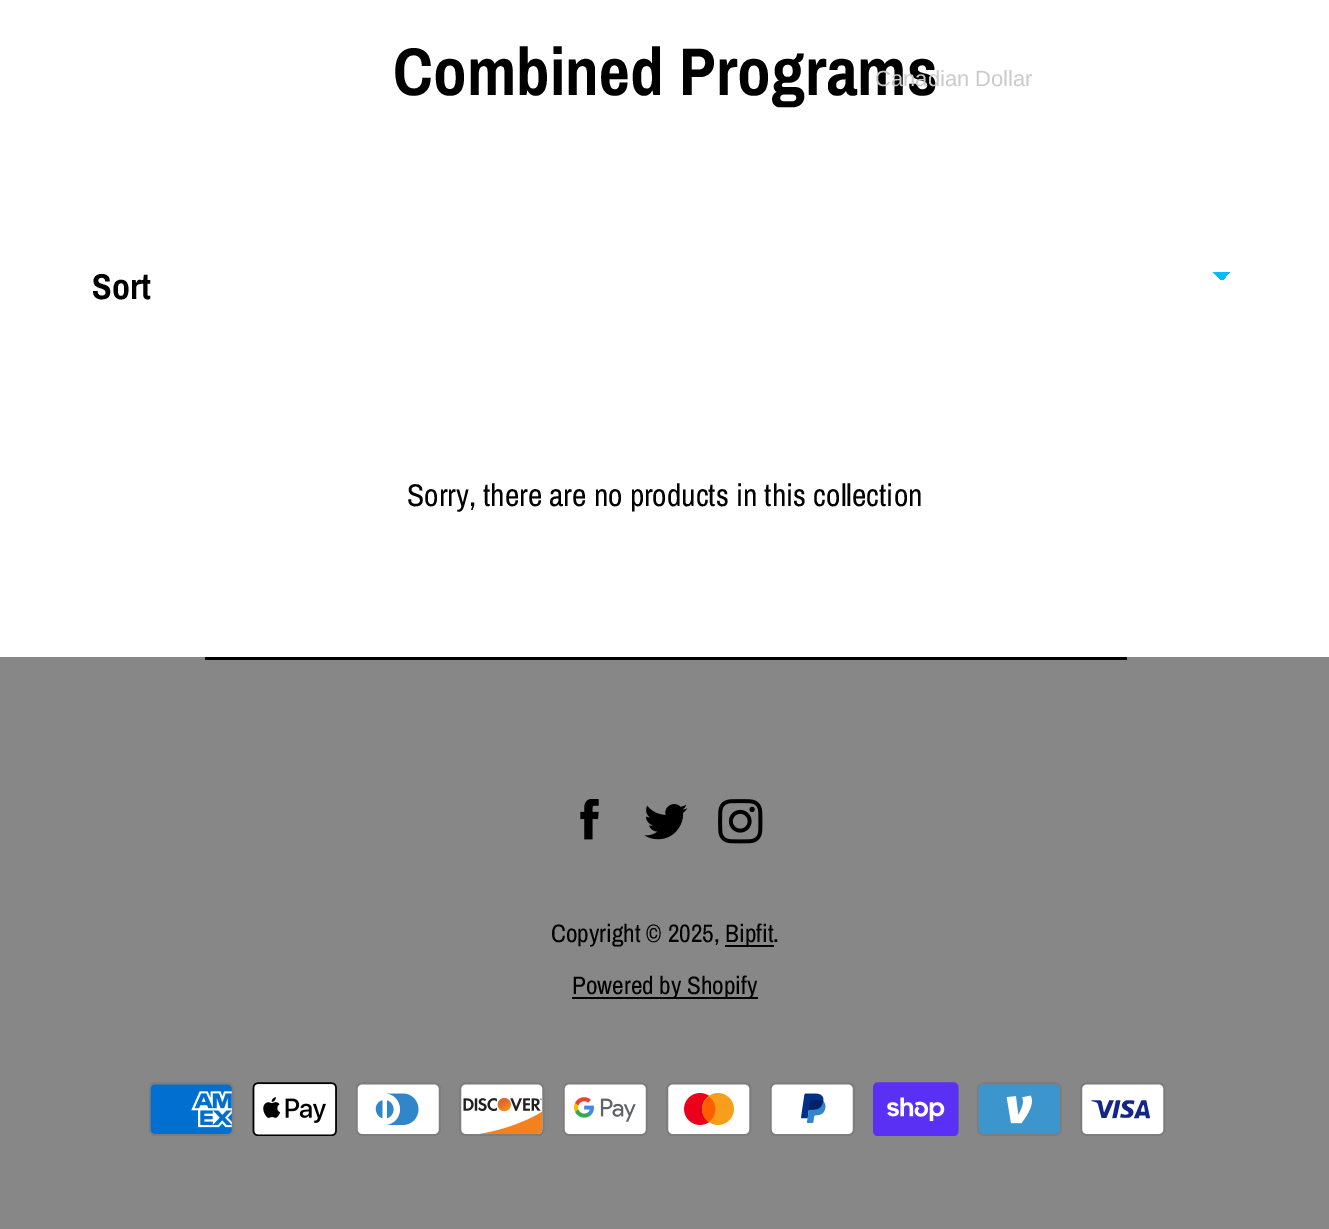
%!PS-Adobe-3.0
%%BoundingBox: 0 0 1329 1229
%%LanguageLevel: 3
%%Pages: 1
%%EndComments
%%BeginProlog
/m { moveto } bind def
/l { lineto } bind def
/h { closepath } bind def
/q { gsave } bind def
/Q { grestore } bind def
/fn { [ exch dup neg 0 0 3 -1 roll 0 0 ] selectfont } def
/tx { moveto show } def
/bx { rectfill } def
/im { 5 dict begin { /h /w /y /x /name } { exch def } forall
  gsave x y translate w h scale
  w h 8 [w 0 0 h 0 0] name (r) file false 3 colorimage grestore end } def
%%EndProlog
%%BeginSetup
<< /PageSize [1329 1229] >> setpagedevice
%%EndSetup
%%Page: 1 1
0 1229 translate 1 -1 scale
4 setmiterlimit
0.529 setgray
0 0 1329 1229 bx
1 setgray
0 0 1329 657 bx
/ArchivoNarrow-Bold 67.5 fn
0 setgray
(Combined Programs) 393 95 tx
q 1222 272 m 1231 272 l 1231 280 l 1222 280 l h clip newpath
<< /ShadingType 2 /ColorSpace /DeviceRGB /Coords [1222 272 1231 281] /Extend [true true] /Function << /FunctionType 3 /Domain [0 1] /Functions [<< /FunctionType 2 /Domain [0 1] /C0 [0 0.741 1] /C1 [0 0.741 1] /N 1 >> << /FunctionType 2 /Domain [0 1] /C0 [1 1 1] /C1 [1 1 1] /N 1 >>] /Bounds [0.5] /Encode [0 1 0 1] >> >> shfill Q
q 1213 272 m 1222 272 l 1222 280 l 1213 280 l h clip newpath
<< /ShadingType 2 /ColorSpace /DeviceRGB /Coords [1213 281 1222 272] /Extend [true true] /Function << /FunctionType 3 /Domain [0 1] /Functions [<< /FunctionType 2 /Domain [0 1] /C0 [1 1 1] /C1 [1 1 1] /N 1 >> << /FunctionType 2 /Domain [0 1] /C0 [0 0.741 1] /C1 [0 0.741 1] /N 1 >>] /Bounds [0.5] /Encode [0 1 0 1] >> >> shfill Q
/ArchivoNarrow-Bold 36 fn
(Sort) 92 299 tx
/ArchivoNarrow-Regular 31.5 fn
(Sorry, there are no products in this collection) 407 506 tx
205 657 922 3 bx
(image0.raw) 580 799 19 41 im
(image1.raw) 644 804 44 36 im
(image2.raw) 718 799 45 45 im
/ArchivoNarrow-Regular 25.25 fn
(Copyright © 2025,) 551 942 tx
725 945 49 2 bx
(Bipfit.) 725 942 tx
572 997 186 2 bx
(Powered by Shopify) 572 994 tx
(image3.raw) 149 1082 85 54 im
(image4.raw) 252 1082 85 54 im
(image5.raw) 356 1082 85 54 im
(image6.raw) 459 1082 86 54 im
(image7.raw) 563 1082 85 54 im
(image8.raw) 666 1082 86 54 im
(image9.raw) 770 1082 85 54 im
(image10.raw) 873 1082 86 54 im
(image11.raw) 977 1082 85 54 im
(image12.raw) 1080 1082 86 54 im
/LiberationSans-Regular 22 fn
0.796 setgray
(Canadian Dollar) 875 86 tx
showpage
%%EOF
